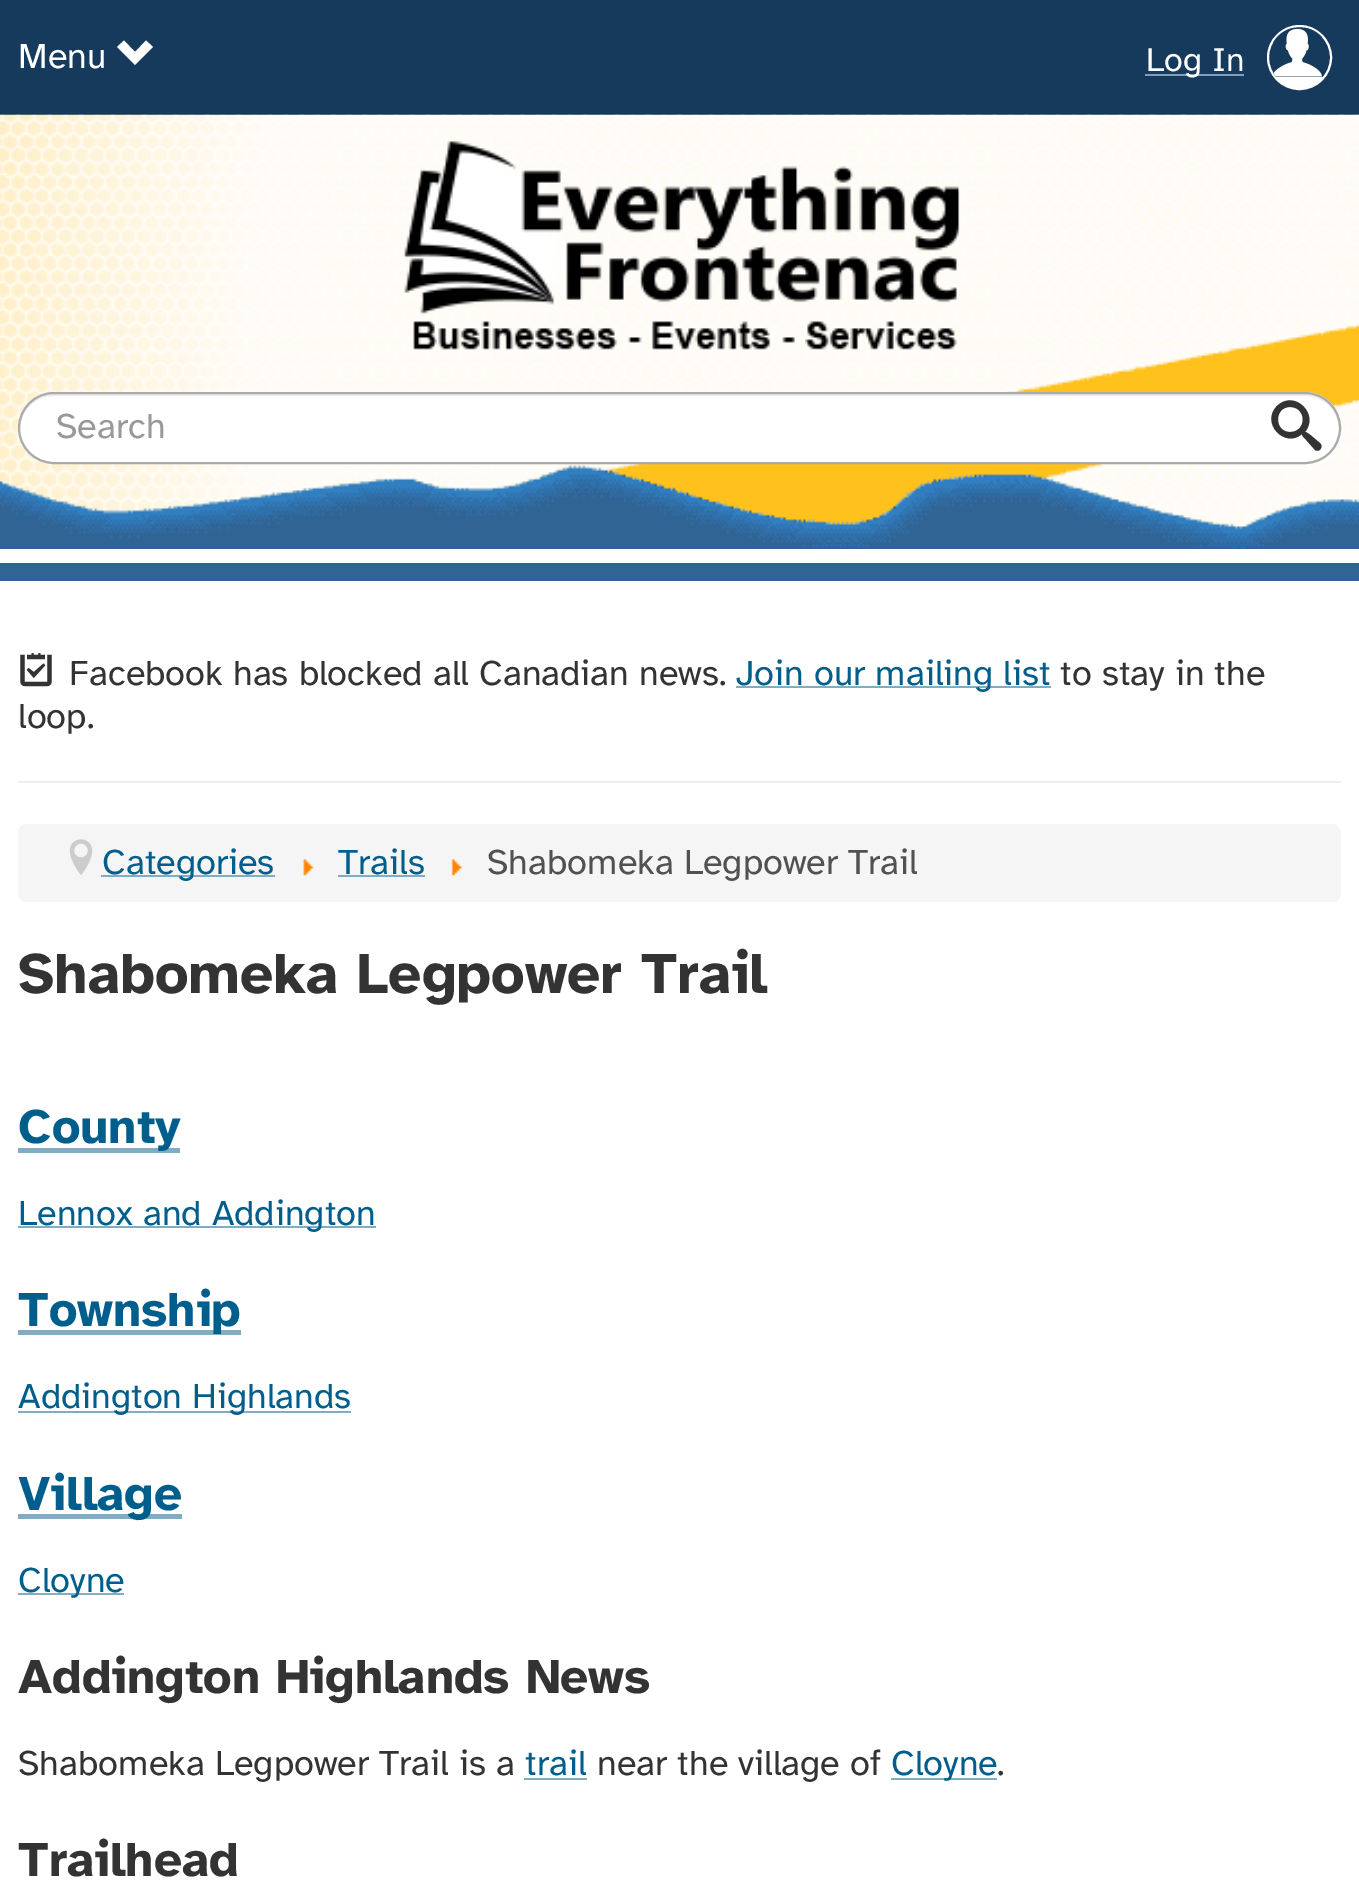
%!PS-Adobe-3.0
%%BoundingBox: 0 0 1359 1904
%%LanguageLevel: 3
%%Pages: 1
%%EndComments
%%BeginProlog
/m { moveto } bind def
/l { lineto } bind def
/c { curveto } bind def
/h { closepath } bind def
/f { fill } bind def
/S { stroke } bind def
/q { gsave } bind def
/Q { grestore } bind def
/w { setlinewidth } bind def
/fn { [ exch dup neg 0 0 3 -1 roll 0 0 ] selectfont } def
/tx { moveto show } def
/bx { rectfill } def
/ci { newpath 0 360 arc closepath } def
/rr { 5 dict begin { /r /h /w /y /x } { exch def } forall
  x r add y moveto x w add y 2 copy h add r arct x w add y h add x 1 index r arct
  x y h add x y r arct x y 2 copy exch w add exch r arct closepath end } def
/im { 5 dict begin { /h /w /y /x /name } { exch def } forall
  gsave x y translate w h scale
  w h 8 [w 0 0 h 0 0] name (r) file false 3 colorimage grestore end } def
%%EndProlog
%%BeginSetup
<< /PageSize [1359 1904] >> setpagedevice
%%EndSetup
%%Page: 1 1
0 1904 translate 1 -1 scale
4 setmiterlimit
1 setgray
0 0 1359 1904 bx
0.086 0.227 0.361 setrgbcolor
0 0 1359 115 bx
/AtkinsonHyperlegible-Regular 36 fn
1 setgray
(Menu) 18 68 tx
153 47 m 135 65 l 117 47 l 124 40.5 l 135 52 l 146 40.5 l h f
0.502 0.624 0.737 setrgbcolor
1145 74 99 2 bx
/AtkinsonHyperlegible-Regular 34 fn
1 setgray
(Log In) 1146 71 tx
2 w
1299.5 57.5 31.5 ci S
q
1269 27 61 61 30.5 rr clip newpath
1276 77 47 11 bx
Q
(image0.raw) 1273 28 49 49 im
(image1.raw) 0 114 1359 435 im
(image2.raw) 404 141 556 209 im
18 392 1323 72 36 rr f
0.925 setgray
54 396 m 1305 396 l 1324 396 1338 410 1339 429 c 1339 428 l 1339 409 1324 394 1306 394 c 54 394 l 35 394 20 409 20 428 c 20 429 l 21 410 35 396 54 396 c h f
0.667 setgray
19 393 1321 70 35 rr S
/AtkinsonHyperlegible-Regular 36 fn
0.6 setgray
(Search) 56 438 tx
0.2 setgray
1320 443 m 1324 447 1319 453 1315 450 c 1307 441 l 1306 439 1302 437 1302 434 c 1285 449 1260 423 1277 406 c 1294 389 1320 414 1305 432 c 1308 432 1317 441 1320 443 c h 1290 432 m 1307 432 1307 407 1290 407 c 1274 407 1274 432 1290 432 c h f
0.188 0.392 0.58 setrgbcolor
0 563 1359 18 bx
(image3.raw) 20 653 32 34 im
0.2 setgray
(Facebook has blocked all Canadian news.) 69 685 tx
0.51 0.675 0.757 setrgbcolor
736 686 315 2 bx
0 0.369 0.553 setrgbcolor
(Join our mailing list) 736 685 tx
0.2 setgray
(to stay in the) 1060 685 tx
(loop.) 18 728 tx
0.933 setgray
18 781 1323 2 bx
0.961 setgray
18 824 1323 78 9 rr f
(image4.raw) 69 839 24 36 im
0.51 0.675 0.757 setrgbcolor
101 875 174 2 bx
0 0.369 0.553 setrgbcolor
(Categories) 102 874 tx
(image5.raw) 303 859 11 17 im
(Trails) 338 874 tx
0.51 0.675 0.757 setrgbcolor
338 875 87 2 bx
(image6.raw) 451 859 11 17 im
0.318 setgray
(Shabomeka Legpower Trail) 487 874 tx
/AtkinsonHyperlegible-Bold 58.5 fn
0.2 setgray
(Shabomeka Legpower Trail) 18 993 tx
0.51 0.675 0.757 setrgbcolor
18 1148 162 5 bx
/AtkinsonHyperlegible-Bold 49.5 fn
0 0.369 0.553 setrgbcolor
(County) 18 1143 tx
0.51 0.675 0.757 setrgbcolor
18 1226 358 2 bx
/AtkinsonHyperlegible-Regular 36 fn
0 0.369 0.553 setrgbcolor
(Lennox and Addington) 18 1225 tx
0.51 0.675 0.757 setrgbcolor
18 1330 223 5 bx
/AtkinsonHyperlegible-Bold 49.5 fn
0 0.369 0.553 setrgbcolor
(Township) 18 1326 tx
0.51 0.675 0.757 setrgbcolor
18 1411 333 2 bx
/AtkinsonHyperlegible-Regular 36 fn
0 0.369 0.553 setrgbcolor
(Addington Highlands) 18 1408 tx
0.51 0.675 0.757 setrgbcolor
18 1514 164 5 bx
/AtkinsonHyperlegible-Bold 49.5 fn
0 0.369 0.553 setrgbcolor
(Village) 18 1510 tx
0.51 0.675 0.757 setrgbcolor
18 1593 106 2 bx
/AtkinsonHyperlegible-Regular 36 fn
0 0.369 0.553 setrgbcolor
(Cloyne) 18 1592 tx
/AtkinsonHyperlegible-Bold 49.5 fn
0.2 setgray
(Addington Highlands News) 18 1693 tx
/AtkinsonHyperlegible-Regular 36 fn
(Shabomeka Legpower Trail is a) 18 1775 tx
0 0.369 0.553 setrgbcolor
(trail) 525 1775 tx
0.51 0.675 0.757 setrgbcolor
524 1778 63 2 bx
0.2 setgray
(near the village of) 597 1775 tx
0.51 0.675 0.757 setrgbcolor
891 1778 106 2 bx
0 0.369 0.553 setrgbcolor
(Cloyne) 891 1775 tx
0.2 setgray
(.) 997 1775 tx
/AtkinsonHyperlegible-Bold 49.5 fn
(Trailhead) 18 1876 tx
showpage
%%EOF
